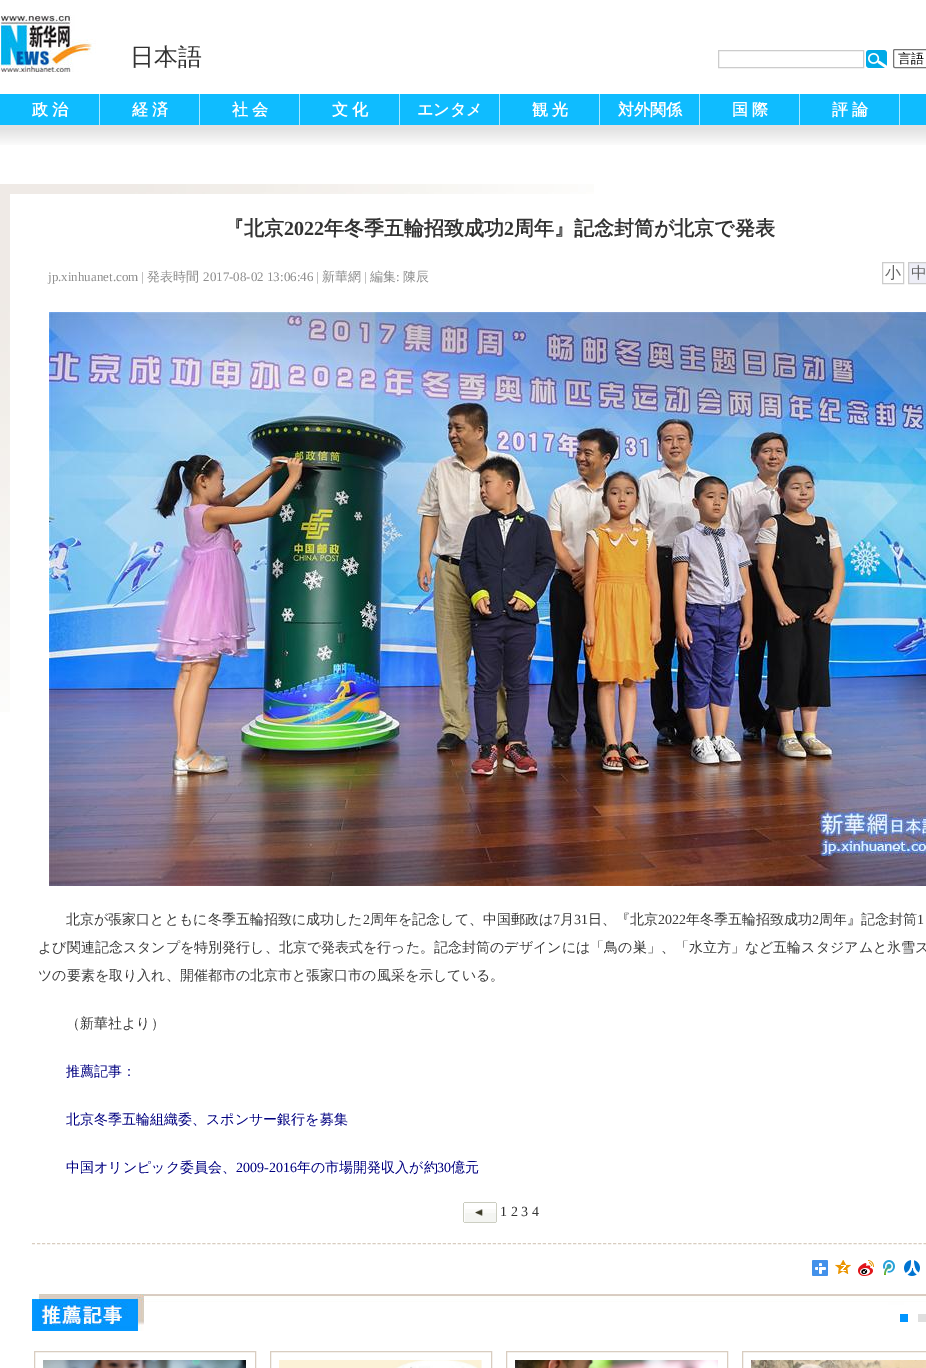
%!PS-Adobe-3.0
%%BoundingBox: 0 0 926 1368
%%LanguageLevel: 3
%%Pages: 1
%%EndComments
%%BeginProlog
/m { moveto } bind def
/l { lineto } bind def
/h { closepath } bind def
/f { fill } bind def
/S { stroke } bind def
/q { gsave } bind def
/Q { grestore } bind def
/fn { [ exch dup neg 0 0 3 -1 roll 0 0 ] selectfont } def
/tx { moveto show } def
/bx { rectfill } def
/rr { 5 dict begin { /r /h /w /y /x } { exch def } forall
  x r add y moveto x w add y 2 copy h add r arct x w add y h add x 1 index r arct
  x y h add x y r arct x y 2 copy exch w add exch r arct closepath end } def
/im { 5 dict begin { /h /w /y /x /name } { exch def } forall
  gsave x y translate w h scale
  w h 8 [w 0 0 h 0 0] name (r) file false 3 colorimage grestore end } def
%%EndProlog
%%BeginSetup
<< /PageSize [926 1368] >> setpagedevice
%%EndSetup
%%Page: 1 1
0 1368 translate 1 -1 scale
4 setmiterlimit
1 setgray
0 0 926 1368 bx
(image0.raw) 0 15 96 57 im
/WenQuanYiZenHei-Medium 24 fn
0.2 setgray
(日本語) 130 65 tx
0.8 setgray
718.5 50.5 145 17 rectstroke
(image1.raw) 866 50 21 18 im
0.463 setgray
893.5 49.5 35 18 1.5 rr S
/WenQuanYiZenHei-Medium 13 fn
0 setgray
(言語) 898 63 tx
0.886 setgray
0 125 926 5 bx
0.059 0.737 1 setrgbcolor
0 94 99 31 bx
0.671 0.906 1 setrgbcolor
99 94 1 31 bx
/WenQuanYiZenHei-Bold 16 fn
1 setgray
(政) 32 115 tx
(治) 52 115 tx
0.059 0.737 1 setrgbcolor
100 94 99 31 bx
0.671 0.906 1 setrgbcolor
199 94 1 31 bx
1 setgray
(経) 132 115 tx
(済) 152 115 tx
0.059 0.737 1 setrgbcolor
200 94 99 31 bx
0.671 0.906 1 setrgbcolor
299 94 1 31 bx
1 setgray
(社) 232 115 tx
(会) 252 115 tx
0.059 0.737 1 setrgbcolor
300 94 99 31 bx
0.671 0.906 1 setrgbcolor
399 94 1 31 bx
1 setgray
(文) 332 115 tx
(化) 352 115 tx
0.059 0.737 1 setrgbcolor
400 94 99 31 bx
0.671 0.906 1 setrgbcolor
499 94 1 31 bx
1 setgray
(エンタメ) 417 115 tx
0.059 0.737 1 setrgbcolor
500 94 99 31 bx
0.671 0.906 1 setrgbcolor
599 94 1 31 bx
1 setgray
(観) 532 115 tx
(光) 552 115 tx
0.059 0.737 1 setrgbcolor
600 94 99 31 bx
0.671 0.906 1 setrgbcolor
699 94 1 31 bx
1 setgray
(対外関係) 618 115 tx
0.059 0.737 1 setrgbcolor
700 94 99 31 bx
0.671 0.906 1 setrgbcolor
799 94 1 31 bx
1 setgray
(国) 732 115 tx
(際) 752 115 tx
0.059 0.737 1 setrgbcolor
800 94 99 31 bx
0.671 0.906 1 setrgbcolor
899 94 1 31 bx
1 setgray
(評) 832 115 tx
(論) 852 115 tx
0.059 0.737 1 setrgbcolor
900 94 26 31 bx
(image2.raw) 0 130 926 15 im
(image3.raw) 0 184 10 528 im
(image4.raw) 10 184 584 10 im
/WenQuanYiZenHei-Bold 20 fn
0.2 setgray
(『北京) 224 235 tx
/LiberationSerif-Bold 20 fn
(2022) 284 235 tx
/WenQuanYiZenHei-Bold 20 fn
(年冬季五輪招致成功) 324 235 tx
/LiberationSerif-Bold 20 fn
(2) 504 235 tx
/WenQuanYiZenHei-Bold 20 fn
(周年』記念封筒が北京で発表) 514 235 tx
/LiberationSerif-Regular 13 fn
0.553 setgray
(jp.xinhuanet.com |) 48 281 tx
/WenQuanYiZenHei-Medium 13 fn
(発表時間) 147 281 tx
/LiberationSerif-Regular 13 fn
(2017-08-02 13:06:46 |) 203 281 tx
/WenQuanYiZenHei-Medium 13 fn
(新華網) 322 281 tx
/LiberationSerif-Regular 13 fn
(|) 364 281 tx
/WenQuanYiZenHei-Medium 13 fn
(編集) 370 281 tx
/LiberationSerif-Regular 13 fn
(:) 396 281 tx
/WenQuanYiZenHei-Medium 13 fn
(陳辰) 403 281 tx
0.8 setgray
882.5 262.5 21 21 rectstroke
/WenQuanYiZenHei-Medium 16 fn
0.4 setgray
(小) 885 278 tx
0.933 0.933 0.969 setrgbcolor
908.5 262.5 m 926.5 262.5 l 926.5 283.5 l 908.5 283.5 l h q f Q
0.8 setgray
S
0.4 setgray
(中) 911 278 tx
(image5.raw) 49 312 877 574 im
/WenQuanYiZenHei-Medium 14 fn
0.224 setgray
(北京が張家口とともに冬季五輪招致に成功した) 66 924 tx
/LiberationSerif-Regular 14 fn
(2) 363 924 tx
/WenQuanYiZenHei-Medium 14 fn
(周年を記念して、中国郵政は) 370 924 tx
/LiberationSerif-Regular 14 fn
(7) 553 924 tx
/WenQuanYiZenHei-Medium 14 fn
(月) 560 924 tx
/LiberationSerif-Regular 14 fn
(31) 574 924 tx
/WenQuanYiZenHei-Medium 14 fn
(日、『北京) 588 924 tx
/LiberationSerif-Regular 14 fn
(2022) 658 924 tx
/WenQuanYiZenHei-Medium 14 fn
(年冬季五輪招致成功) 686 924 tx
/LiberationSerif-Regular 14 fn
(2) 812 924 tx
/WenQuanYiZenHei-Medium 14 fn
(周年』記念封筒) 819 924 tx
/LiberationSerif-Regular 14 fn
(1) 917 924 tx
/WenQuanYiZenHei-Medium 14 fn
(よび関連記念スタンプを特別発行し、北京で発表式を行った。記念封筒のデザインには「鳥の巣」、「水立方」など五輪スタジアムと氷雪ス) 38 952 tx
(ツの要素を取り入れ、開催都市の北京市と張家口市の風采を示している。) 38 980 tx
(（新華社より）) 66 1028 tx
0 0 0.502 setrgbcolor
(推薦記事：) 66 1076 tx
(北京冬季五輪組織委、スポンサー銀行を募集) 66 1124 tx
(中国オリンピック委員会、) 66 1172 tx
/LiberationSerif-Regular 14 fn
(2009-2016) 236 1172 tx
/WenQuanYiZenHei-Medium 14 fn
(年の市場開発収入が約) 297 1172 tx
/LiberationSerif-Regular 14 fn
(30) 437 1172 tx
/WenQuanYiZenHei-Medium 14 fn
(億元) 451 1172 tx
(image6.raw) 463 1202 34 21 im
/LiberationSerif-Regular 14 fn
0.2 setgray
(1 2 3) 500 1216 tx
0.224 setgray
(4) 532 1216 tx
0.851 0.804 0.753 setrgbcolor
[3 2.01] 0 setdash
32 1243.5 m 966 1243.5 l S
(image7.raw) 812 1260 16 16 im
(image8.raw) 835 1260 16 14 im
(image9.raw) 858 1260 16 16 im
(image10.raw) 883 1260 12 15 im
(image11.raw) 904 1260 16 16 im
(image12.raw) 32 1294 894 37 im
0.004 0.584 1 setrgbcolor
900 1314 8 8 bx
0.875 setgray
918 1314 8 8 bx
0.851 0.804 0.753 setrgbcolor
[] 0 setdash
34.5 1351.5 221 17 rectstroke
(image13.raw) 43 1360 203 8 im
270.5 1351.5 221 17 rectstroke
(image14.raw) 279 1360 203 8 im
506.5 1351.5 221 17 rectstroke
(image15.raw) 515 1360 203 8 im
742.5 1351.5 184 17 rectstroke
(image16.raw) 751 1360 175 8 im
showpage
%%EOF
